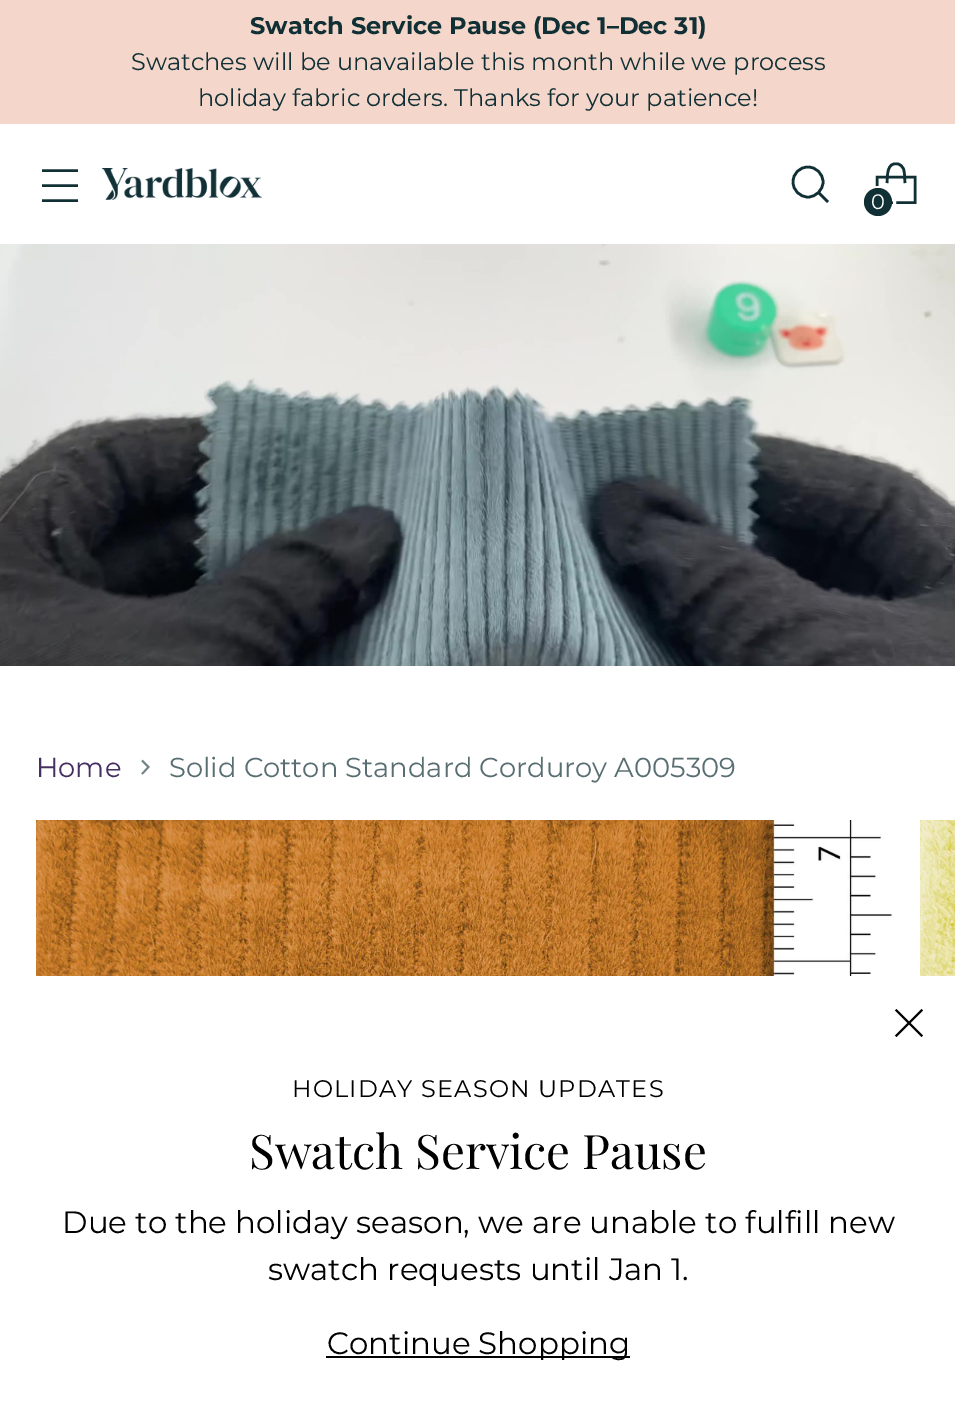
%!PS-Adobe-3.0
%%BoundingBox: 0 0 955 1409
%%LanguageLevel: 3
%%Pages: 1
%%EndComments
%%BeginProlog
/m { moveto } bind def
/l { lineto } bind def
/c { curveto } bind def
/h { closepath } bind def
/f { fill } bind def
/S { stroke } bind def
/w { setlinewidth } bind def
/fn { [ exch dup neg 0 0 3 -1 roll 0 0 ] selectfont } def
/tx { moveto show } def
/bx { rectfill } def
/ci { newpath 0 360 arc closepath } def
/im { 5 dict begin { /h /w /y /x /name } { exch def } forall
  gsave x y translate w h scale
  w h 8 [w 0 0 h 0 0] name (r) file false 3 colorimage grestore end } def
%%EndProlog
%%BeginSetup
<< /PageSize [955 1409] >> setpagedevice
%%EndSetup
%%Page: 1 1
0 1409 translate 1 -1 scale
4 setmiterlimit
1 setgray
0 0 955 1409 bx
0.957 0.839 0.792 setrgbcolor
0 0 955 124 bx
/Montserrat-Bold 24 fn
0.067 0.188 0.208 setrgbcolor
(Swatch Service Pause \(Dec 1–Dec 31\)) 250 34 tx
/Montserrat-Regular 24 fn
(Swatches will be unavailable this month while we process) 131 70 tx
(holiday fabric orders. Thanks for your patience!) 198 106 tx
2.6 w
42 185.5 m 78 185.5 l 42 170.5 m 78 170.5 l 42 200.5 m 78 200.5 l S
(image0.raw) 102 168 160 32 im
1 setlinecap
808 197 m 816 197 823 190 823 182 c 823 173.5 816 167 808 167 c 799.5 167 793 173.5 793 182 c 793 190 799.5 197 808 197 c h S
0 setlinecap
818.5 192.5 m 828 202 l S
2 setlinejoin
905 183 m 904.5 178.5 905 173.5 903.5 169 c 902.5 166.5 900.5 164.5 898 164 c 886.5 161.5 887.5 176 887 183 c S
0 setlinejoin
915 202.5 m 915 177 l 877 177 l 877 202.5 l h S
1 setgray
3 w
879 203 15.5 ci S
0.067 0.188 0.208 setrgbcolor
878 202 14 ci f
/Montserrat-Regular 21 fn
1 setgray
(0) 871 209 tx
(image1.raw) 0 244 955 422 im
/Montserrat-Regular 27.4 fn
0.271 0.184 0.38 setrgbcolor
(Home) 36 777 tx
0.439 0.514 0.525 setrgbcolor
1.8 w
142 774 m 148.5 767 l 142 760.5 l S
0.345 0.431 0.447 setrgbcolor
(Solid Cotton Standard Corduroy A005309) 169 777 tx
(image2.raw) 36 820 884 156 im
(image3.raw) 920 820 35 156 im
(image4.raw) 894 1009 30 28 im
/Montserrat-Regular 24 fn
0 setgray
292 1097 m 1.2 0 (HOLIDAY SEASON UPDATES) ashow
/PlayfairDisplay-Regular 47.6 fn
(Swatch Service Pause) 249 1169 tx
/Montserrat-Regular 30.9 fn
(Due to the holiday season, we are unable to fulfill new) 62 1233 tx
(swatch requests until Jan 1.) 268 1280 tx
326 1356 304 2 bx
(Continue Shopping) 327 1354 tx
showpage
%%EOF
